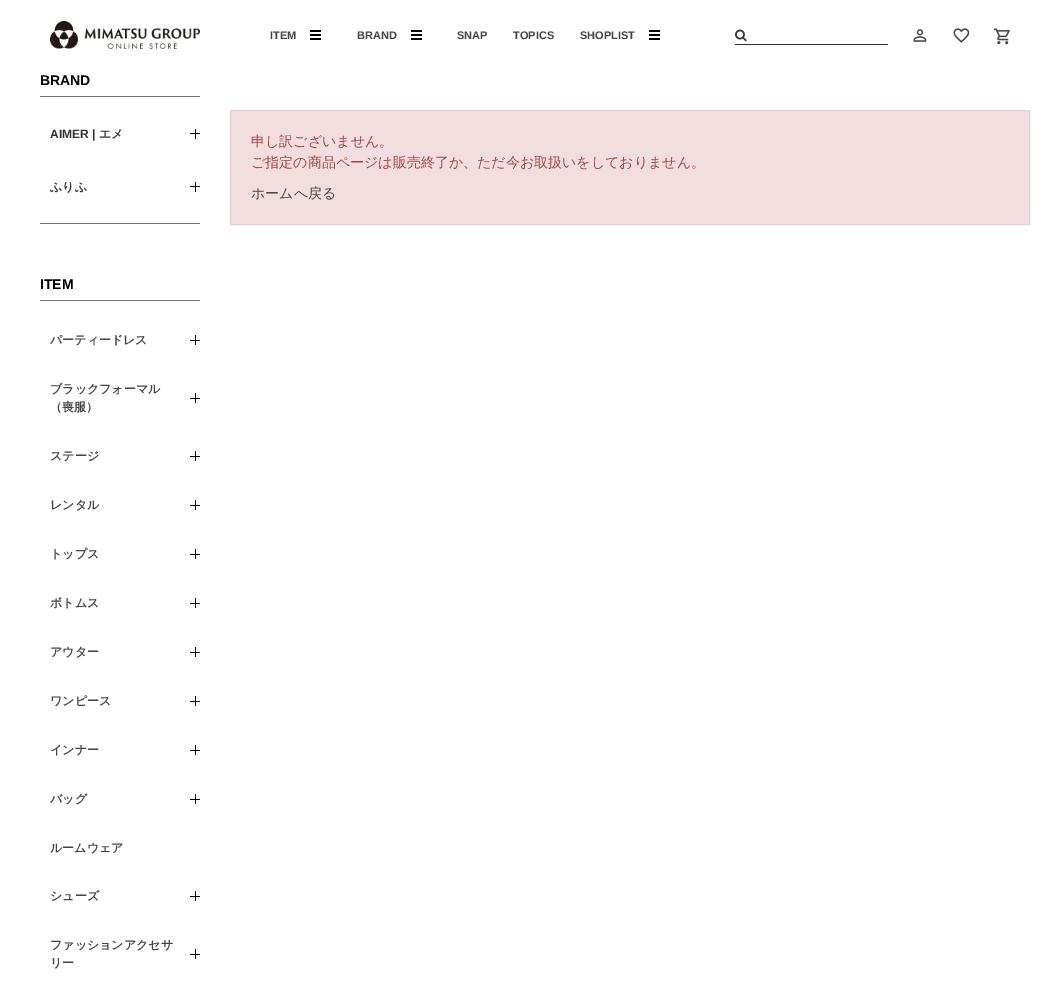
%!PS-Adobe-3.0
%%BoundingBox: 0 0 1060 1005
%%LanguageLevel: 3
%%Pages: 1
%%EndComments
%%BeginProlog
/m { moveto } bind def
/l { lineto } bind def
/h { closepath } bind def
/f { fill } bind def
/S { stroke } bind def
/q { gsave } bind def
/Q { grestore } bind def
/fn { [ exch dup neg 0 0 3 -1 roll 0 0 ] selectfont } def
/tx { moveto show } def
/bx { rectfill } def
/im { 5 dict begin { /h /w /y /x /name } { exch def } forall
  gsave x y translate w h scale
  w h 8 [w 0 0 h 0 0] name (r) file false 3 colorimage grestore end } def
%%EndProlog
%%BeginSetup
<< /PageSize [1060 1005] >> setpagedevice
%%EndSetup
%%Page: 1 1
0 1005 translate 1 -1 scale
4 setmiterlimit
1 setgray
0 0 1060 1005 bx
(image0.raw) 50 21 150 28 im
/LiberationSans-Bold 11 fn
0.267 setgray
(ITEM) 270 39 tx
0 setgray
310 34 11 2 bx
310 30 11 2 bx
310 38 11 2 bx
0.267 setgray
(BRAND) 357 39 tx
0 setgray
411 34 11 2 bx
411 30 11 2 bx
411 38 11 2 bx
0.267 setgray
(SNAP) 457 39 tx
(TOPICS) 513 39 tx
(SHOPLIST) 580 39 tx
0 setgray
649 34 11 2 bx
649 30 11 2 bx
649 38 11 2 bx
0.2 setgray
735 44 153 1 bx
(image1.raw) 735 29 12 13 im
(image2.raw) 913 29 14 13 im
(image3.raw) 953 28 17 15 im
(image4.raw) 994 28 16 17 im
0.439 setgray
40 223 160 1 bx
40 96 160 1 bx
/LiberationSans-Bold 14 fn
0 setgray
(BRAND) 40 85 tx
/LiberationSans-Bold 12 fn
0.2 setgray
(AIMER |) 50 138 tx
/WenQuanYiZenHei-Bold 12 fn
(エメ) 99 138 tx
0 setgray
195 129 1 10 bx
190 133 10 1 bx
0.2 setgray
(ふりふ) 50 191 tx
0 setgray
195 182 1 10 bx
190 186 10 1 bx
0.439 setgray
40 300 160 1 bx
/LiberationSans-Bold 14 fn
0 setgray
(ITEM) 40 289 tx
/WenQuanYiZenHei-Bold 12 fn
0.267 setgray
(パーティードレス) 50 344 tx
0 setgray
195 335 1 10 bx
190 340 10 1 bx
0.267 setgray
(ブラックフォーマル) 50 393 tx
(（喪服）) 50 411 tx
0 setgray
195 393 1 10 bx
190 398 10 1 bx
0.267 setgray
(ステージ) 50 460 tx
0 setgray
195 451 1 10 bx
190 456 10 1 bx
0.267 setgray
(レンタル) 50 509 tx
0 setgray
195 500 1 10 bx
190 505 10 1 bx
0.267 setgray
(トップス) 50 558 tx
0 setgray
195 549 1 10 bx
190 554 10 1 bx
0.267 setgray
(ボトムス) 50 607 tx
0 setgray
195 598 1 10 bx
190 603 10 1 bx
0.267 setgray
(アウター) 50 656 tx
0 setgray
195 647 1 10 bx
190 652 10 1 bx
0.267 setgray
(ワンピース) 50 705 tx
0 setgray
195 696 1 10 bx
190 701 10 1 bx
0.267 setgray
(インナー) 50 754 tx
0 setgray
195 745 1 10 bx
190 750 10 1 bx
0.267 setgray
(バッグ) 50 803 tx
0 setgray
195 794 1 10 bx
190 799 10 1 bx
0.267 setgray
(ルームウェア) 50 852 tx
(シューズ) 50 900 tx
0 setgray
195 891 1 10 bx
190 896 10 1 bx
0.267 setgray
(ファッションアクセサ) 50 949 tx
(リー) 50 967 tx
0 setgray
195 949 1 10 bx
190 954 10 1 bx
0.949 0.871 0.871 setrgbcolor
230.5 110.5 m 1029.5 110.5 l 1029.5 224.5 l 230.5 224.5 l h q f Q
0.922 0.8 0.82 setrgbcolor
S
/WenQuanYiZenHei-Medium 14 fn
0.663 0.267 0.259 setrgbcolor
(申し訳ございません。) 251 146 tx
(ご指定の商品ページは販売終了か、ただ今お取扱いをしておりません。) 251 167 tx
0.267 setgray
(ホームへ戻る) 251 198 tx
showpage
%%EOF
